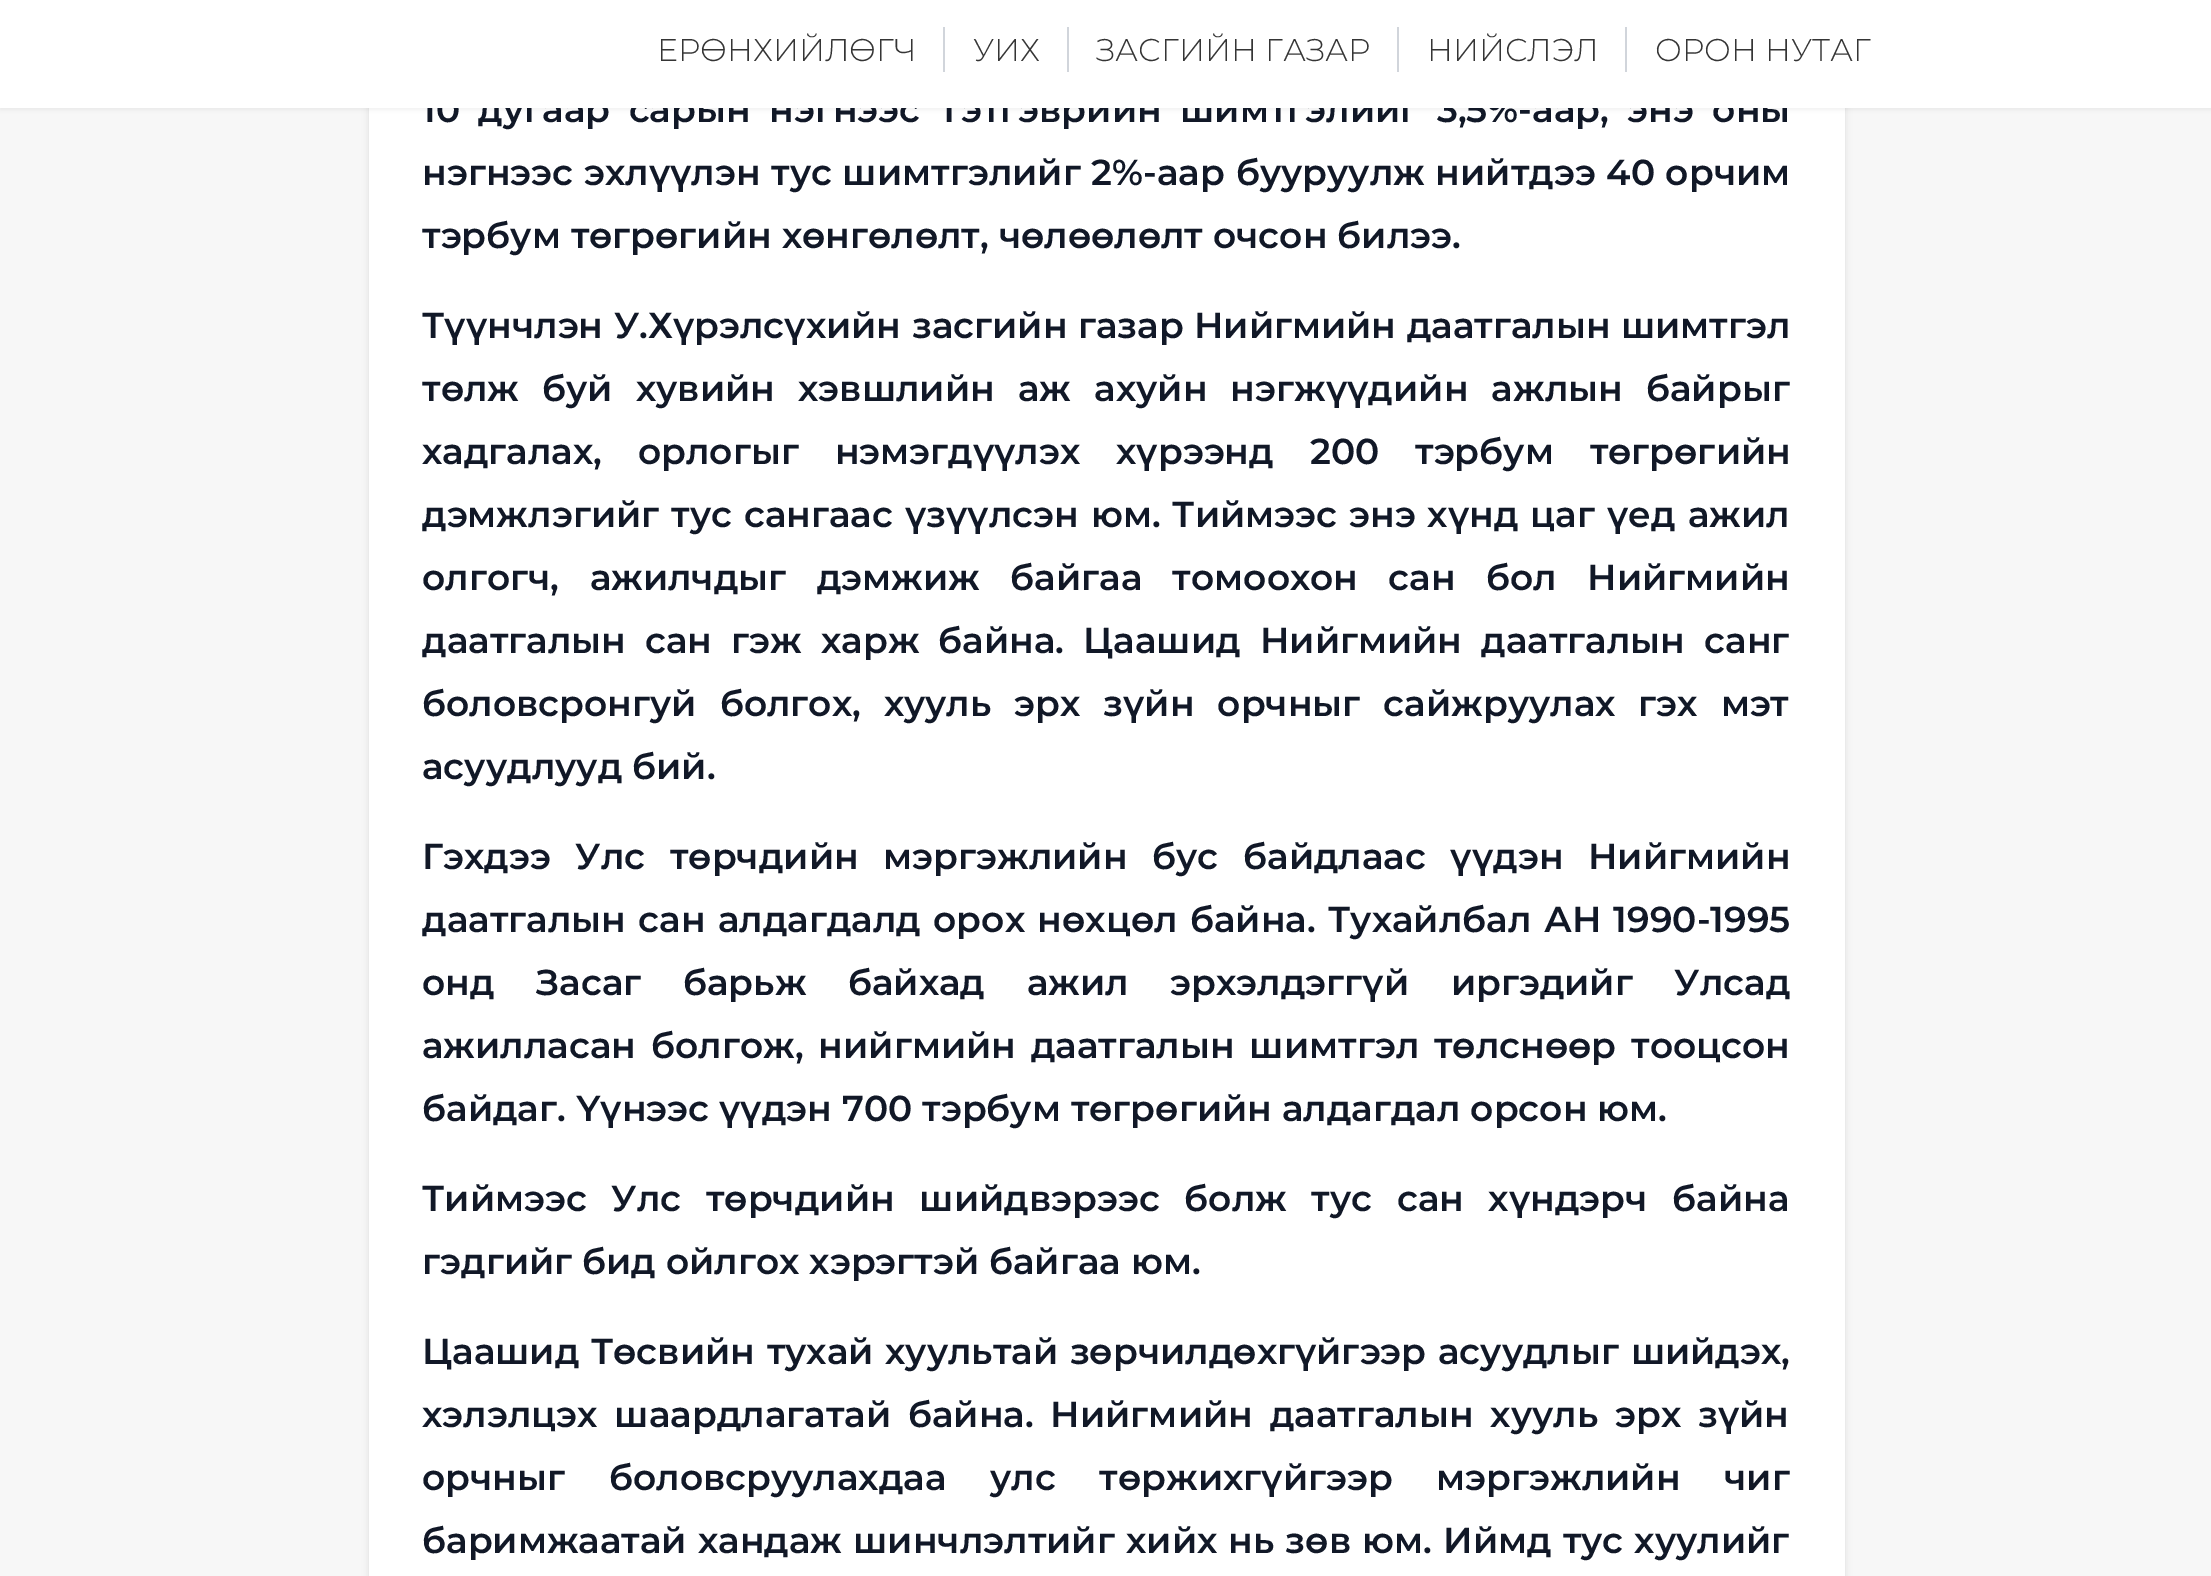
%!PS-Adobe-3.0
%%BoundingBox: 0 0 2211 1576
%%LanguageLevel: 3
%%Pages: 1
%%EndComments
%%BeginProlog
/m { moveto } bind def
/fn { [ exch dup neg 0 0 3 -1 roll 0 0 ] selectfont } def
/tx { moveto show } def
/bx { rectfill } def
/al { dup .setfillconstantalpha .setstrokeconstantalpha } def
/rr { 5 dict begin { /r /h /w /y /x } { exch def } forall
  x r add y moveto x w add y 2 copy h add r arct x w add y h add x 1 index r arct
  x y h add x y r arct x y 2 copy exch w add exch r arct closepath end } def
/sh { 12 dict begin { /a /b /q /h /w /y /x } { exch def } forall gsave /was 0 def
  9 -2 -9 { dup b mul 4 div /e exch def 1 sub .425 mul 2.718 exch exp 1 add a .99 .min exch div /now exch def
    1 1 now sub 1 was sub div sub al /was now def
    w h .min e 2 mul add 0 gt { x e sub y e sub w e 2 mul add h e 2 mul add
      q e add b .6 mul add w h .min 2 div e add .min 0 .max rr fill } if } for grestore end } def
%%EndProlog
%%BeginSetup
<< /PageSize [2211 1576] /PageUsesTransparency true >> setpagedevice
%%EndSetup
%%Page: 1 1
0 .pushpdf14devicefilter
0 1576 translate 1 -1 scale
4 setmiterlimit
0.969 setgray
0 0 2211 1576 bx
0 setgray
369 -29 1476 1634 18 3.5 0.1 sh
1 setgray
369 108 1476 1468 bx
0 setgray
0 2 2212 108 0 2 0.05 sh
/Montserrat-SemiBold 36 fn
0.067 0.094 0.153 setrgbcolor
422 122 m 8.5 0 32 (10 дугаар сарын нэгнээс Тэтгэврийн шимтгэлийг 3,5%-аар, энэ оны) widthshow
1 setgray
0 0 2211 108 bx
0.82 0.835 0.859 setrgbcolor
943 27 2 45 bx
/Montserrat-Light 31.5 fn
0.208 setgray
(ЕРӨНХИЙЛӨГЧ) 657 61 tx
0.82 0.835 0.859 setrgbcolor
1067 27 2 45 bx
0.208 setgray
(УИХ) 973 61 tx
0.82 0.835 0.859 setrgbcolor
1397 27 2 45 bx
0.208 setgray
(ЗАСГИЙН ГАЗАР) 1096 61 tx
0.82 0.835 0.859 setrgbcolor
1625 27 2 45 bx
0.208 setgray
(НИЙСЛЭЛ) 1427 61 tx
(ОРОН НУТАГ) 1655 61 tx
/Montserrat-SemiBold 36 fn
0.067 0.094 0.153 setrgbcolor
422 185 m 0.75 0 32 (нэгнээс эхлүүлэн тус шимтгэлийг 2%-аар бууруулж нийтдээ 40 орчим) widthshow
(тэрбум төгрөгийн хөнгөлөлт, чөлөөлөлт очсон билээ.) 422 248 tx
422 338 m 0.5 0 32 (Түүнчлэн У.Хүрэлсүхийн засгийн газар Нийгмийн даатгалын шимтгэл) widthshow
422 401 m 13.25 0 32 (төлж буй хувийн хэвшлийн аж ахуйн нэгжүүдийн ажлын байрыг) widthshow
422 464 m 26 0 32 (хадгалах, орлогыг нэмэгдүүлэх хүрээнд 200 тэрбум төгрөгийн) widthshow
422 527 m 2 0 32 (дэмжлэгийг тус сангаас үзүүлсэн юм. Тиймээс энэ хүнд цаг үед ажил) widthshow
422 590 m 20.5 0 32 (олгогч, ажилчдыг дэмжиж байгаа томоохон сан бол Нийгмийн) widthshow
422 653 m 9.25 0 32 (даатгалын сан гэж харж байна. Цаашид Нийгмийн даатгалын санг) widthshow
422 716 m 13 0 32 (боловсронгуй болгох, хууль эрх зүйн орчныг сайжруулах гэх мэт) widthshow
(асуудлууд бий.) 422 779 tx
422 869 m 14.75 0 32 (Гэхдээ Улс төрчдийн мэргэжлийн бус байдлаас үүдэн Нийгмийн) widthshow
422 932 m 2.5 0 32 (даатгалын сан алдагдалд орох нөхцөл байна. Тухайлбал АН 1990-1995) widthshow
422 995 m 31.75 0 32 (онд Засаг барьж байхад ажил эрхэлдэггүй иргэдийг Улсад) widthshow
422 1058 m 5 0 32 (ажилласан болгож, нийгмийн даатгалын шимтгэл төлснөөр тооцсон) widthshow
(байдаг. Үүнээс үүдэн 700 тэрбум төгрөгийн алдагдал орсон юм.) 422 1121 tx
422 1211 m 14.75 0 32 (Тиймээс Улс төрчдийн шийдвэрээс болж тус сан хүндэрч байна) widthshow
(гэдгийг бид ойлгох хэрэгтэй байгаа юм.) 422 1274 tx
422 1364 m 1.75 0 32 (Цаашид Төсвийн тухай хуультай зөрчилдөхгүйгээр асуудлыг шийдэх,) widthshow
422 1427 m 7 0 32 (хэлэлцэх шаардлагатай байна. Нийгмийн даатгалын хууль эрх зүйн) widthshow
422 1490 m 33.75 0 32 (орчныг боловсруулахдаа улс төржихгүйгээр мэргэжлийн чиг) widthshow
422 1553 m 1.25 0 32 (баримжаатай хандаж шинчлэлтийг хийх нь зөв юм. Иймд тус хуулийг) widthshow
.poppdf14devicefilter showpage
%%EOF
